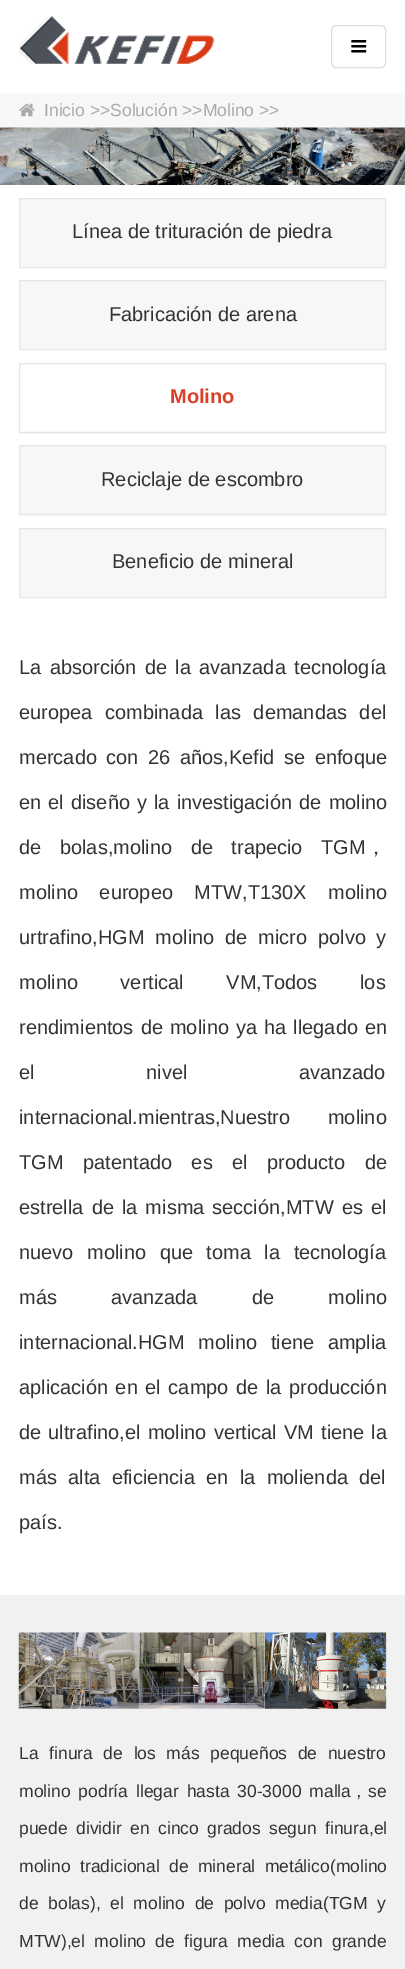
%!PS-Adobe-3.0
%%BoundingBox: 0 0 405 1969
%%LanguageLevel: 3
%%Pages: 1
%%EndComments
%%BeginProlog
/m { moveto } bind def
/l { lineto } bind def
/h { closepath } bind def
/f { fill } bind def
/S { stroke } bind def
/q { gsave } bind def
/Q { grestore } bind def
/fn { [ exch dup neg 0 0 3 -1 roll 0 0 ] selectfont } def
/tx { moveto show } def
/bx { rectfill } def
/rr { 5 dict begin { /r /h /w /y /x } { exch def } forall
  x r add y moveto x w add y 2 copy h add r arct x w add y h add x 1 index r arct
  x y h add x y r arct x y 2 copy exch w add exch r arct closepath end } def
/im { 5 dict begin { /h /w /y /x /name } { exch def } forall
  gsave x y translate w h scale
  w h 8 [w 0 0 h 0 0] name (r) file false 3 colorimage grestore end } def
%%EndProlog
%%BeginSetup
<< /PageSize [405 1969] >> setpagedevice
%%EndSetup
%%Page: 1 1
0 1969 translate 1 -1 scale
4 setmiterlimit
1 setgray
0 0 405 1969 bx
(image0.raw) 18 16 196 48 im
0.867 setgray
331.5 25.5 54 42 4.5 rr S
(image1.raw) 351 40 16 13 im
0.969 setgray
0 93 405 35 bx
(image2.raw) 19 103 16 14 im
/LiberationSans-Regular 17.5 fn
0.667 setgray
(Inicio >>Solución >>Molino >>) 44 116 tx
(image3.raw) 0 127 405 58 im
0.969 setgray
19.5 198.5 m 385.5 198.5 l 385.5 267.5 l 19.5 267.5 l h q f Q
0.898 setgray
S
/LiberationSans-Regular 20 fn
0.2 setgray
(Línea de trituración de piedra) 72 238 tx
0.969 setgray
19.5 280.5 m 385.5 280.5 l 385.5 349.5 l 19.5 349.5 l h q f Q
0.898 setgray
S
0.2 setgray
(Fabricación de arena) 109 321 tx
0.969 setgray
20 431 365 1 bx
0.898 setgray
19.5 363.5 366 69 rectstroke
/LiberationSans-Bold 20 fn
0.859 0.247 0.157 setrgbcolor
(Molino) 170 403 tx
0.969 setgray
19.5 445.5 m 385.5 445.5 l 385.5 514.5 l 19.5 514.5 l h q f Q
0.898 setgray
S
/LiberationSans-Regular 20 fn
0.2 setgray
(Reciclaje de escombro) 101 486 tx
0.969 setgray
19.5 528.5 m 385.5 528.5 l 385.5 597.5 l 19.5 597.5 l h q f Q
0.898 setgray
S
0.2 setgray
(Beneficio de mineral) 112 568 tx
19 674 m 2.75 0 32 (La absorción de la avanzada tecnología) widthshow
19 719 m 7 0 32 (europea combinada las demandas del) widthshow
19 764 m 4 0 32 (mercado con 26 años,Kefid se enfoque) widthshow
19 809 m 1.5 0 32 (en el diseño y la investigación de molino) widthshow
19 854 m 13 0 32 (de bolas,molino de trapecio TGM) widthshow
/WenQuanYiZenHei-Medium 20 fn
(，) 366 854 tx
/LiberationSans-Regular 20 fn
19 899 m 16 0 32 (molino europeo MTW,T130X molino) widthshow
19 944 m 5.25 0 32 (urtrafino,HGM molino de micro polvo y) widthshow
19 989 m 37 0 32 (molino vertical VM,Todos los) widthshow
19 1034 m 1.5 0 32 (rendimientos de molino ya ha llegado en) widthshow
19 1079 m 106 0 32 (el nivel avanzado) widthshow
19 1124 m 32 0 32 (internacional.mientras,Nuestro molino) widthshow
19 1169 m 14 0 32 (TGM patentado es el producto de) widthshow
19 1214 m 2.5 0 32 (estrella de la misma sección,MTW es el) widthshow
19 1259 m 8 0 32 (nuevo molino que toma la tecnología) widthshow
19 1304 m 48.5 0 32 (más avanzada de molino) widthshow
19 1349 m 8 0 32 (internacional.HGM molino tiene amplia) widthshow
19 1394 m 2 0 32 (aplicación en el campo de la producción) widthshow
19 1439 m 1.5 0 32 (de ultrafino,el molino vertical VM tiene la) widthshow
19 1484 m 5.75 0 32 (más alta eficiencia en la molienda del) widthshow
(país.) 19 1529 tx
0.945 setgray
0 1595 405 374 bx
(image4.raw) 18 1632 369 77 im
/LiberationSans-Regular 17.5 fn
0.2 setgray
19 1759 m 5.75 0 32 (La finura de los más pequeños de nuestro) widthshow
19 1797 m 3 0 32 (molino podría llegar hasta 30-3000 malla) widthshow
/WenQuanYiZenHei-Medium 17.5 fn
(，) 350 1797 tx
/LiberationSans-Regular 17.5 fn
(se) 368 1797 tx
19 1834 m 3.5 0 32 (puede dividir en cinco grados segun finura,el) widthshow
19 1872 m 4.5 0 32 (molino tradicional de mineral metálico\(molino) widthshow
19 1909 m 4.75 0 32 (de bolas\), el molino de polvo media\(TGM y) widthshow
19 1947 m 4.5 0 32 (MTW\),el molino de figura media con grande) widthshow
showpage
%%EOF
